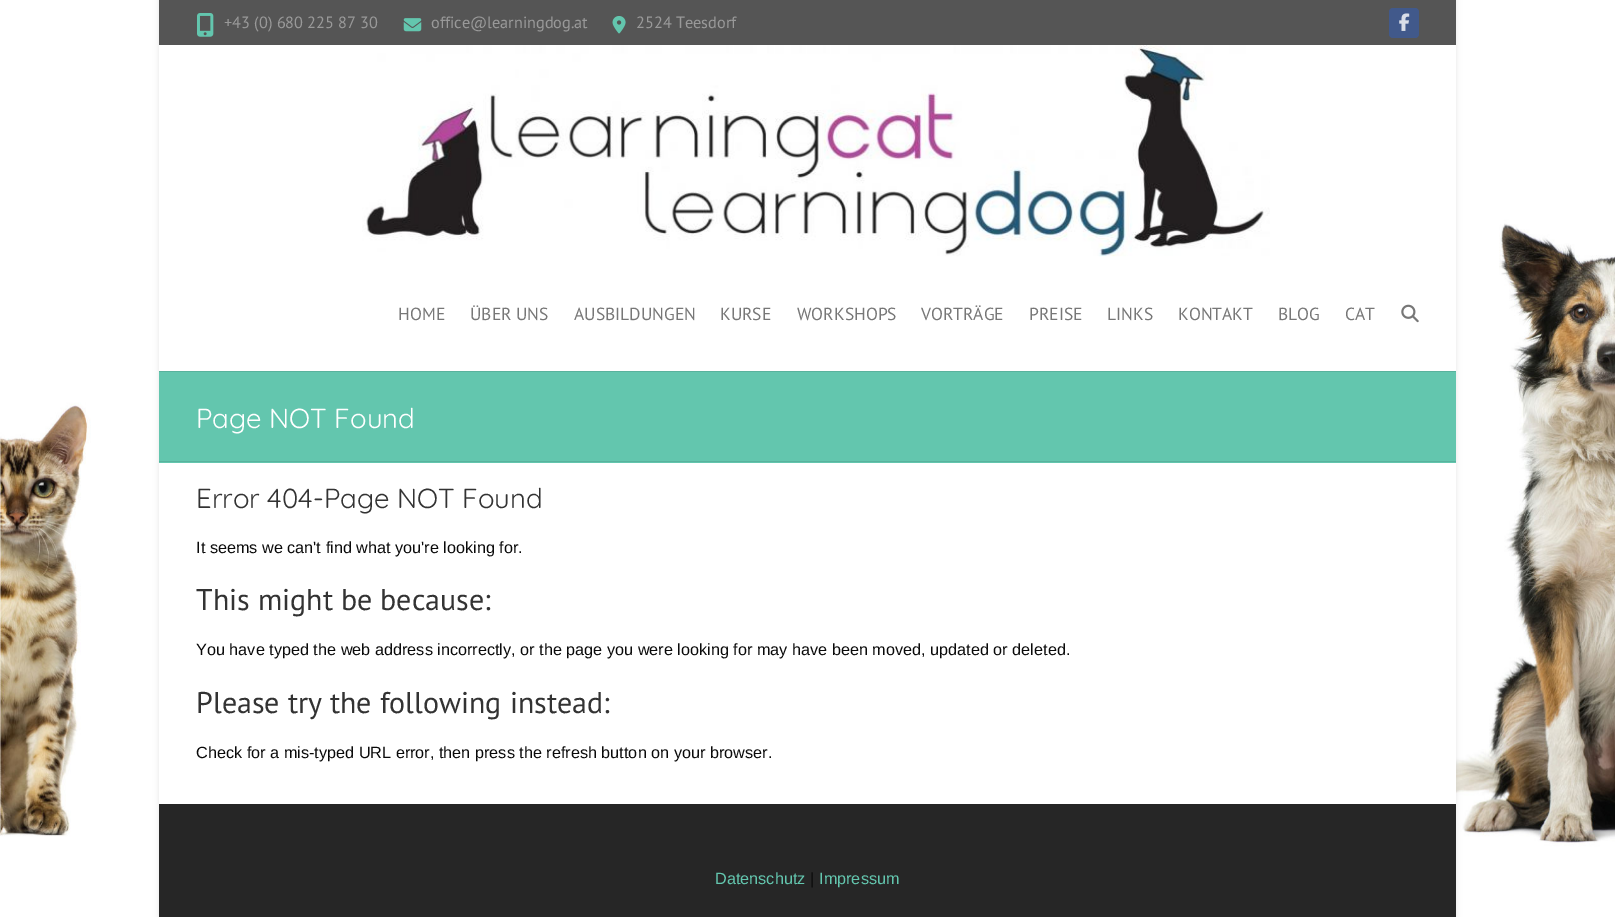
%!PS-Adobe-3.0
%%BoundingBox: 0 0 1615 917
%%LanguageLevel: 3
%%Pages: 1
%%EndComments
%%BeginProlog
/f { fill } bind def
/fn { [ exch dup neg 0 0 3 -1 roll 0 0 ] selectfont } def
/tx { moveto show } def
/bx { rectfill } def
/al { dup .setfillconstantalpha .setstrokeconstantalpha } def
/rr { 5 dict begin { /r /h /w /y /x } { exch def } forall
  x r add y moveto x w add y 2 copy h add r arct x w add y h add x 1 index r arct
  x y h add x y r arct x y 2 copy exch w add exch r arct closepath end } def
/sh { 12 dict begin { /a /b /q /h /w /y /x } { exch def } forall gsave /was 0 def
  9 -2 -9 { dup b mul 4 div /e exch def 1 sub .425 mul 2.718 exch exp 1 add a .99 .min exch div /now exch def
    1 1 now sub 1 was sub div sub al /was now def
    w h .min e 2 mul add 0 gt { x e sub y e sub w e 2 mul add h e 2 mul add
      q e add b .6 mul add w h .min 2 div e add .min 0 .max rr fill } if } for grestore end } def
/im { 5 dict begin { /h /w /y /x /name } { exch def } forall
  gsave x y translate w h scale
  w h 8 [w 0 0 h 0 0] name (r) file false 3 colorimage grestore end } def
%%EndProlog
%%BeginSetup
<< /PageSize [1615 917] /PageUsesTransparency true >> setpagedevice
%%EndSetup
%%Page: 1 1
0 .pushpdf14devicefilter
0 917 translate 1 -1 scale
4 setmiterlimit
1 setgray
0 0 1615 917 bx
(image0.raw) 0 0 1615 917 im
0 setgray
159 0 1297 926 0 3 0.1 sh
1 setgray
159 45 1297 759 bx
0.333 setgray
159 0 1297 45 bx
(image1.raw) 197 13 17 24 im
/PTSans-Regular 16.25 fn
0.6 setgray
(+43 \(0\) 680 225 87 30) 224 28 tx
(image2.raw) 403 18 19 14 im
(office@learningdog.at) 431 28 tx
(image3.raw) 612 16 14 18 im
(2524 Teesdorf) 636 28 tx
0.255 0.349 0.545 setrgbcolor
1389 8 30 30 4 rr f
(image4.raw) 1399 13 11 18 im
(image5.raw) 362 45 908 212 im
/PTSans-Regular 17.5 fn
0.467 setgray
(HOME) 398 320 tx
(ÜBER UNS) 470 320 tx
(AUSBILDUNGEN) 574 320 tx
(KURSE) 720 320 tx
(WORKSHOPS) 797 320 tx
(VORTRÄGE) 921 320 tx
(PREISE) 1029 320 tx
(LINKS) 1107 320 tx
(KONTAKT) 1178 320 tx
(BLOG) 1278 320 tx
(CAT) 1345 320 tx
(image6.raw) 1401 304 18 19 im
0.388 0.776 0.682 setrgbcolor
159 372 1297 91 bx
0.349 0.698 0.616 setrgbcolor
159 371 1297 1 bx
159 461 1297 1 bx
/Quicksand-Regular 27.5 fn
1 setgray
(Page NOT Found) 196 428 tx
0.2 setgray
(Error 404-Page NOT Found) 196 508 tx
/LiberationSans-Regular 16.25 fn
0.039 setgray
(It seems we can't find what you're looking for.) 196 553 tx
/PTSans-Regular 30 fn
0.2 setgray
(This might be because:) 196 610 tx
/LiberationSans-Regular 16.25 fn
0.039 setgray
(You have typed the web address incorrectly, or the page you were looking for may have been moved, updated or deleted.) 196 655 tx
/PTSans-Regular 30 fn
0.2 setgray
(Please try the following instead:) 196 713 tx
/LiberationSans-Regular 16.25 fn
0.039 setgray
(Check for a mis-typed URL error, then press the refresh button on your browser.) 196 758 tx
0.149 setgray
159 804 1297 113 bx
0.388 0.776 0.682 setrgbcolor
(Datenschutz) 715 884 tx
0.039 setgray
(|) 810 884 tx
0.388 0.776 0.682 setrgbcolor
(Impressum) 819 884 tx
.poppdf14devicefilter showpage
%%EOF
